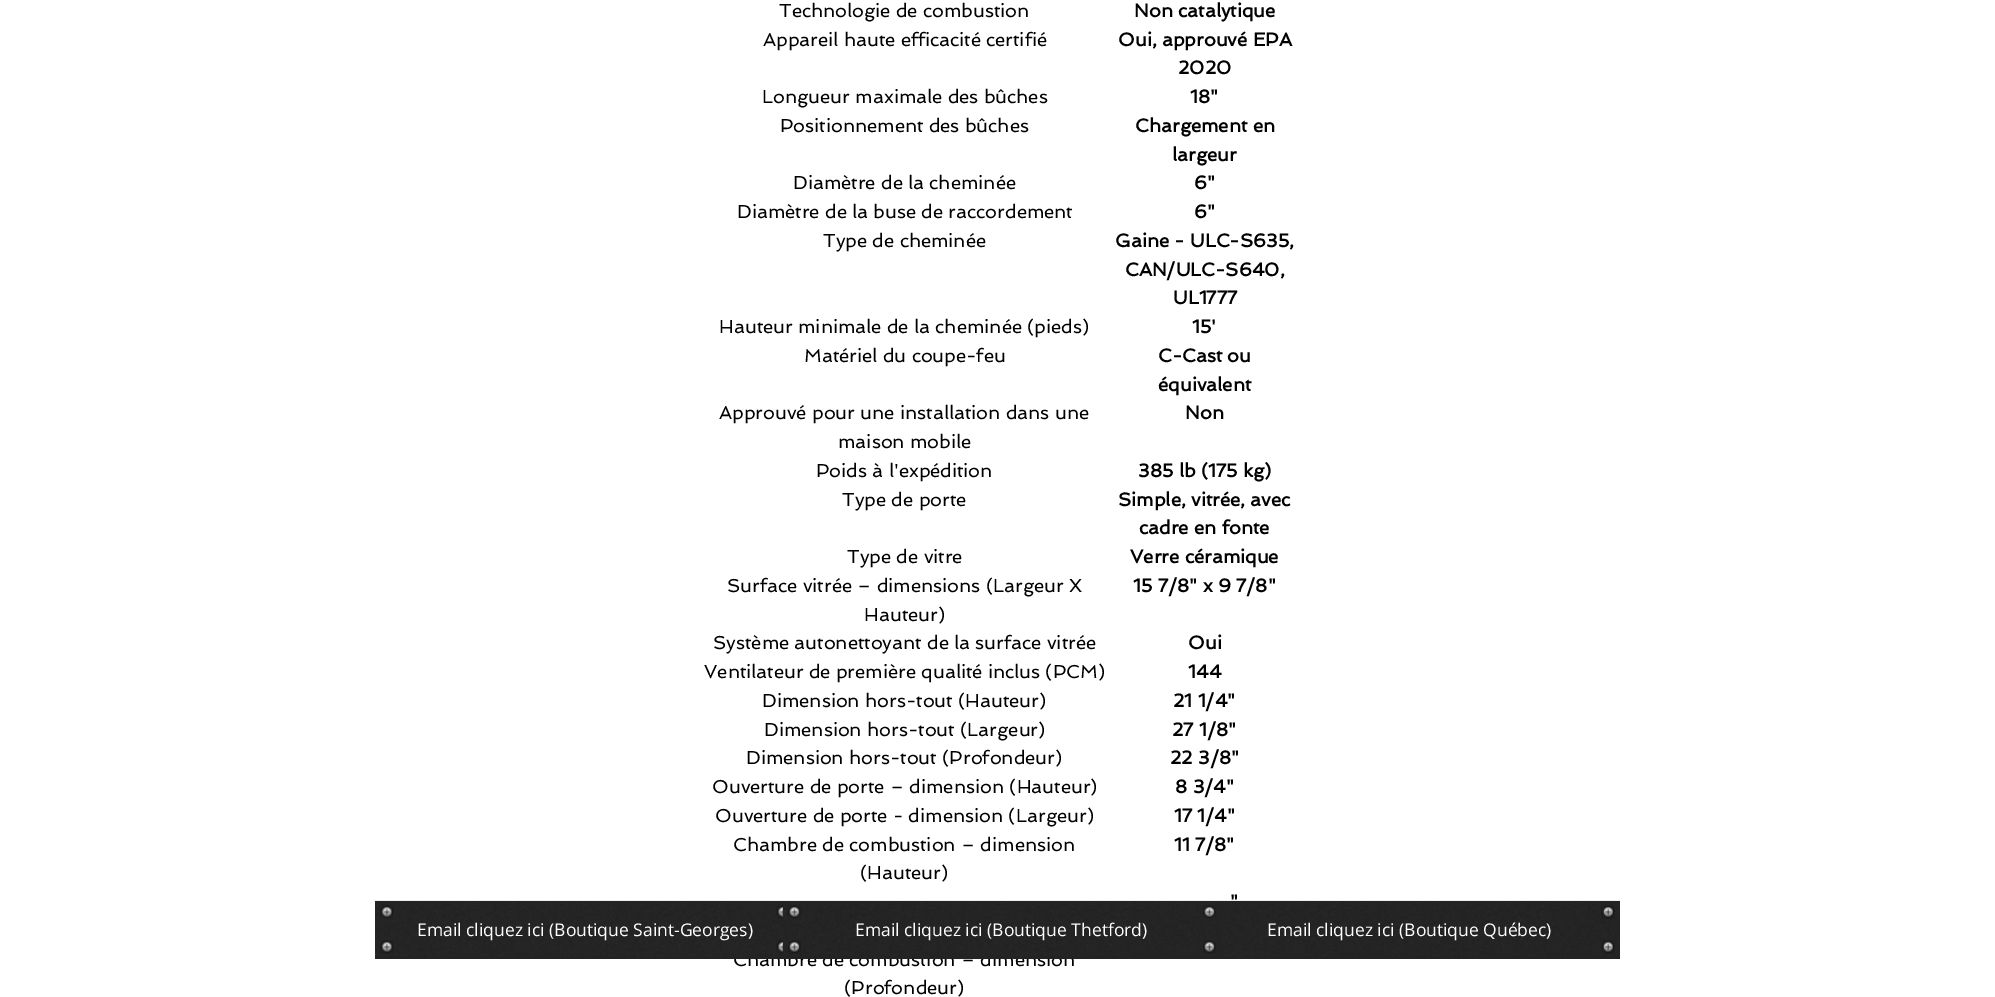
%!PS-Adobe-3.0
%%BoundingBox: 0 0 1995 997
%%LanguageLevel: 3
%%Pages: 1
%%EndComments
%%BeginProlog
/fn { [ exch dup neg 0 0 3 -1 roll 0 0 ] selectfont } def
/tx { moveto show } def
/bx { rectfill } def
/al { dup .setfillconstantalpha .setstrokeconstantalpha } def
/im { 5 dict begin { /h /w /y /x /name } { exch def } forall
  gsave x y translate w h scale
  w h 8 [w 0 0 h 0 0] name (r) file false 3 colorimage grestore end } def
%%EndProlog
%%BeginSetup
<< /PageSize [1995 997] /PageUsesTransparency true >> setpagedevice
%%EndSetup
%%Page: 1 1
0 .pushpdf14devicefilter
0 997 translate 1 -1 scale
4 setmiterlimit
1 setgray
0 0 1995 997 bx
/Spinnaker-Regular 18.75 fn
0 setgray
(Chambre de combustion – dimension) 733 966 tx
0.137 setgray
375 900 408 59 bx
(image0.raw) 375 900 408 57 im
0.92 al
1 setgray
375 900 408 1 bx
1 al
(image1.raw) 380 905 14 14 im
(image2.raw) 776 905 7 14 im
/OpenSans-Regular 17.5 fn
(Email cliquez ici \(Boutique Saint-Georges\)) 417 936 tx
(image3.raw) 380 940 14 14 im
(image4.raw) 776 940 7 14 im
/Spinnaker-Regular 18.75 fn
0 setgray
(Technologie de combustion) 779 17 tx
/Spinnaker-Bold 18.75 fn
(Non catalytique) 1134 17 tx
/Spinnaker-Regular 18.75 fn
(Appareil haute efficacité certifié) 763 46 tx
/Spinnaker-Bold 18.75 fn
(Oui, approuvé EPA) 1118 46 tx
(2020) 1178 74 tx
/Spinnaker-Regular 18.75 fn
(Longueur maximale des bûches) 762 103 tx
/Spinnaker-Bold 18.75 fn
(18") 1190 103 tx
/Spinnaker-Regular 18.75 fn
(Positionnement des bûches) 780 132 tx
/Spinnaker-Bold 18.75 fn
(Chargement en) 1135 132 tx
(largeur) 1172 161 tx
/Spinnaker-Regular 18.75 fn
(Diamètre de la cheminée) 793 189 tx
/Spinnaker-Bold 18.75 fn
(6") 1194 189 tx
/Spinnaker-Regular 18.75 fn
(Diamètre de la buse de raccordement) 737 218 tx
/Spinnaker-Bold 18.75 fn
(6") 1194 218 tx
/Spinnaker-Regular 18.75 fn
(Type de cheminée) 823 247 tx
/Spinnaker-Bold 18.75 fn
(Gaine - ULC-S635,) 1115 247 tx
(CAN/ULC-S640,) 1125 276 tx
(UL1777) 1173 304 tx
/Spinnaker-Regular 18.75 fn
(Hauteur minimale de la cheminée \(pieds\)) 719 333 tx
/Spinnaker-Bold 18.75 fn
(15') 1192 333 tx
/Spinnaker-Regular 18.75 fn
(Matériel du coupe-feu) 804 362 tx
/Spinnaker-Bold 18.75 fn
(C-Cast ou) 1158 362 tx
(équivalent) 1158 391 tx
/Spinnaker-Regular 18.75 fn
(Approuvé pour une installation dans une) 719 419 tx
(maison mobile) 838 448 tx
/Spinnaker-Bold 18.75 fn
(Non) 1185 419 tx
/Spinnaker-Regular 18.75 fn
(Poids à l'expédition) 816 477 tx
/Spinnaker-Bold 18.75 fn
(385 lb \(175 kg\)) 1138 477 tx
/Spinnaker-Regular 18.75 fn
(Type de porte) 842 506 tx
/Spinnaker-Bold 18.75 fn
(Simple, vitrée, avec) 1118 506 tx
(cadre en fonte) 1139 534 tx
/Spinnaker-Regular 18.75 fn
(Type de vitre) 847 563 tx
/Spinnaker-Bold 18.75 fn
(Verre céramique) 1130 563 tx
/Spinnaker-Regular 18.75 fn
(Surface vitrée – dimensions \(Largeur X) 727 592 tx
(Hauteur\)) 864 621 tx
/Spinnaker-Bold 18.75 fn
(15 7/8" x 9 7/8") 1133 592 tx
/Spinnaker-Regular 18.75 fn
(Système autonettoyant de la surface vitrée) 713 649 tx
/Spinnaker-Bold 18.75 fn
(Oui) 1188 649 tx
/Spinnaker-Regular 18.75 fn
(Ventilateur de première qualité inclus \(PCM\)) 704 678 tx
/Spinnaker-Bold 18.75 fn
(144) 1188 678 tx
/Spinnaker-Regular 18.75 fn
(Dimension hors-tout \(Hauteur\)) 762 707 tx
/Spinnaker-Bold 18.75 fn
(21 1/4") 1173 707 tx
/Spinnaker-Regular 18.75 fn
(Dimension hors-tout \(Largeur\)) 764 736 tx
/Spinnaker-Bold 18.75 fn
(27 1/8") 1172 736 tx
/Spinnaker-Regular 18.75 fn
(Dimension hors-tout \(Profondeur\)) 746 764 tx
/Spinnaker-Bold 18.75 fn
(22 3/8") 1170 764 tx
/Spinnaker-Regular 18.75 fn
(Ouverture de porte – dimension \(Hauteur\)) 712 793 tx
/Spinnaker-Bold 18.75 fn
(8 3/4") 1175 793 tx
/Spinnaker-Regular 18.75 fn
(Ouverture de porte - dimension \(Largeur\)) 715 822 tx
/Spinnaker-Bold 18.75 fn
(17 1/4") 1174 822 tx
/Spinnaker-Regular 18.75 fn
(Chambre de combustion – dimension) 733 851 tx
(\(Hauteur\)) 860 879 tx
/Spinnaker-Bold 18.75 fn
(11 7/8") 1174 851 tx
(") 1230 908 tx
/Spinnaker-Regular 18.75 fn
(\(Profondeur\)) 844 994 tx
0.137 setgray
783 900 837 59 bx
(image5.raw) 782 900 434 56 im
0.92 al
1 setgray
783 900 438 1 bx
1 al
(image6.raw) 787 905 14 14 im
(image7.raw) 1202 905 14 14 im
/OpenSans-Regular 17.5 fn
(Email cliquez ici \(Boutique Thetford\)) 855 936 tx
(image8.raw) 788 940 13 14 im
(image9.raw) 1203 940 13 14 im
(image10.raw) 1221 900 398 57 im
0.92 al
1221 900 399 1 bx
1 al
(image11.raw) 1601 905 14 14 im
(Email cliquez ici \(Boutique Québec\)) 1267 936 tx
(image12.raw) 1601 940 14 14 im
.poppdf14devicefilter showpage
%%EOF
